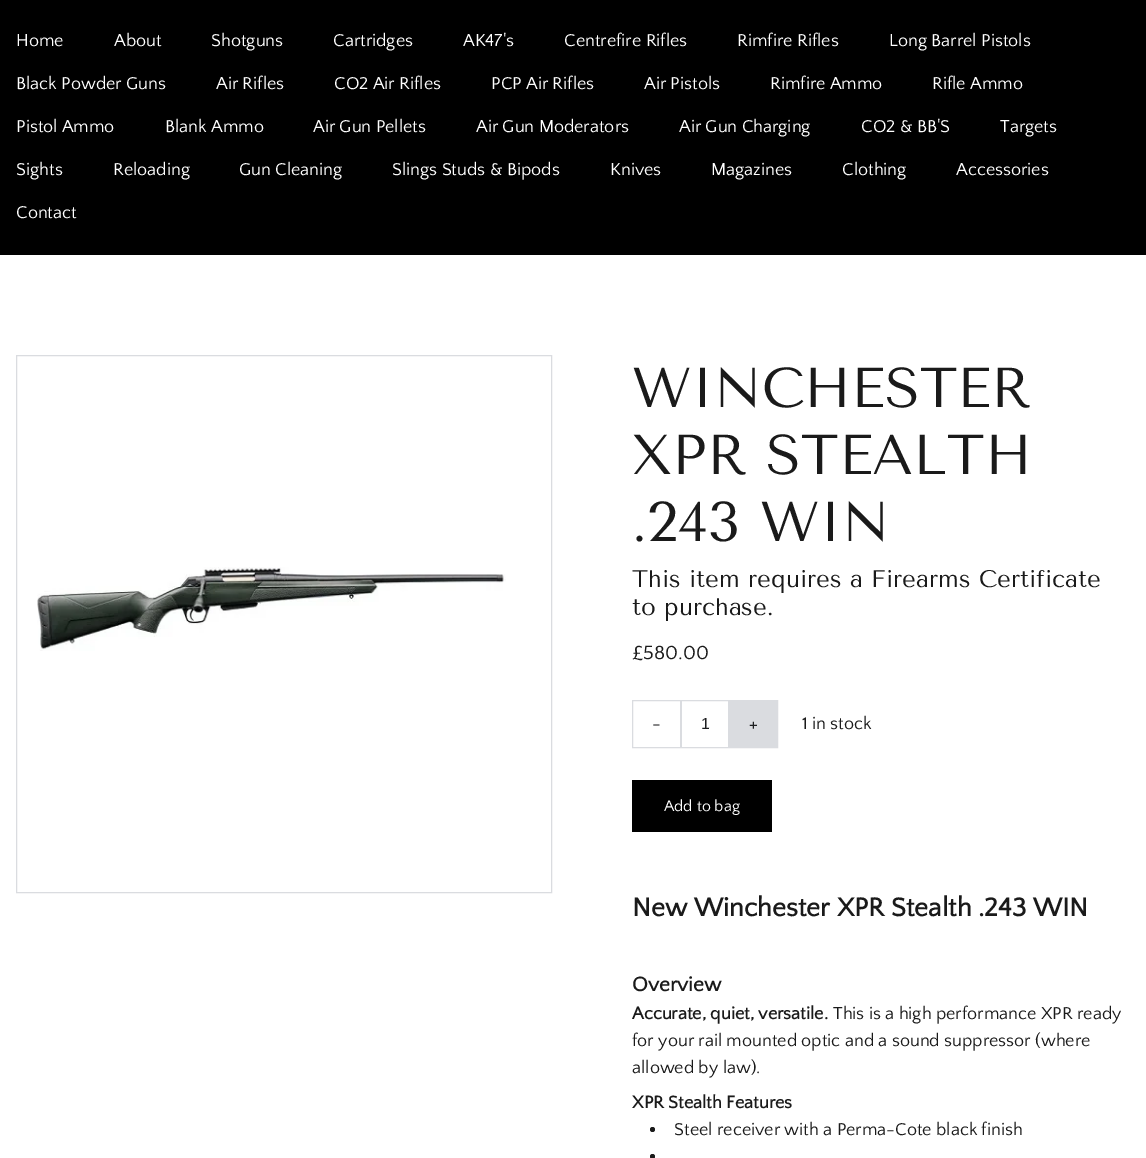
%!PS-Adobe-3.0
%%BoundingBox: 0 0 1146 1158
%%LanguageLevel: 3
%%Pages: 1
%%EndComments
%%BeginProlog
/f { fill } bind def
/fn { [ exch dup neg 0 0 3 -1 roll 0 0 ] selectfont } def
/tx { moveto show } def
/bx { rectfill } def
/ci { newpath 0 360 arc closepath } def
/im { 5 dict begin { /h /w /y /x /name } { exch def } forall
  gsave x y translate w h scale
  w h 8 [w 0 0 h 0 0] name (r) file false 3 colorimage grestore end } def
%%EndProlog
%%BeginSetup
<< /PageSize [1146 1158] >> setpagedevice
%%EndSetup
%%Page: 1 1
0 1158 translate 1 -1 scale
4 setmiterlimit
1 setgray
0 0 1146 1158 bx
0 setgray
0 0 1146 255 bx
/QuattrocentoSans-Regular 18 fn
1 setgray
(Home) 16 46 tx
(About) 114 46 tx
(Shotguns) 211 46 tx
(Cartridges) 333 46 tx
(AK47's) 463 46 tx
(Centrefire Rifles) 564 46 tx
(Rimfire Rifles) 737 46 tx
(Long Barrel Pistols) 889 46 tx
(Black Powder Guns) 16 89 tx
(Air Rifles) 216 89 tx
(CO2 Air Rifles) 334 89 tx
(PCP Air Rifles) 491 89 tx
(Air Pistols) 644 89 tx
(Rimfire Ammo) 770 89 tx
(Rifle Ammo) 932 89 tx
(Pistol Ammo) 16 132 tx
(Blank Ammo) 165 132 tx
(Air Gun Pellets) 313 132 tx
(Air Gun Moderators) 476 132 tx
(Air Gun Charging) 679 132 tx
(CO2 & BB'S) 861 132 tx
(Targets) 1000 132 tx
(Sights) 16 175 tx
(Reloading) 113 175 tx
(Gun Cleaning) 239 175 tx
(Slings Studs & Bipods) 392 175 tx
(Knives) 610 175 tx
(Magazines) 711 175 tx
(Clothing) 842 175 tx
(Accessories) 956 175 tx
(Contact) 16 218 tx
0.855 0.863 0.878 setrgbcolor
16.5 355.5 535 537 rectstroke
(image0.raw) 37 567 469 84 im
/TenorSans-Regular 56 fn
0.102 setgray
(WINCHESTER) 632 407 tx
(XPR STEALTH) 632 474 tx
(.243 WIN) 632 541 tx
/TenorSans-Regular 24 fn
(This item requires a Firearms Certificate) 632 587 tx
(to purchase.) 632 615 tx
/QuattrocentoSans-Regular 20 fn
(£580.00) 632 659 tx
0.855 0.863 0.878 setrgbcolor
632.5 700.5 145 47 rectstroke
680 701 2 46 bx
/DMSans-Regular 16 fn
0.114 0.118 0.125 setrgbcolor
(-) 652 730 tx
0.855 0.863 0.878 setrgbcolor
728 701 49 46 bx
/LiberationSans-Regular 16 fn
0.114 0.118 0.125 setrgbcolor
(1) 701 729 tx
/DMSans-Regular 16 fn
(+) 749 730 tx
/QuattrocentoSans-Regular 18 fn
0.102 setgray
(1 in stock) 802 729 tx
0 setgray
632 780 140 52 bx
/QuattrocentoSans-Regular 16 fn
1 setgray
(Add to bag) 664 811 tx
/QuattrocentoSans-Bold 27 fn
0.102 setgray
(New Winchester XPR Stealth .243 WIN) 632 916 tx
/QuattrocentoSans-Bold 21 fn
(Overview) 632 991 tx
/QuattrocentoSans-Bold 18 fn
(Accurate, quiet, versatile.) 632 1019 tx
/QuattrocentoSans-Regular 18 fn
(This is a high performance XPR ready) 833 1019 tx
(for your rail mounted optic and a sound suppressor \(where) 632 1046 tx
(allowed by law\).) 632 1073 tx
/QuattrocentoSans-Bold 18 fn
(XPR Stealth Features) 632 1108 tx
652.5 1129.5 2.5 ci f
/QuattrocentoSans-Regular 18 fn
(Steel receiver with a Perma-Cote black finish) 674 1135 tx
652.5 1156.5 2.5 ci f
showpage
%%EOF
